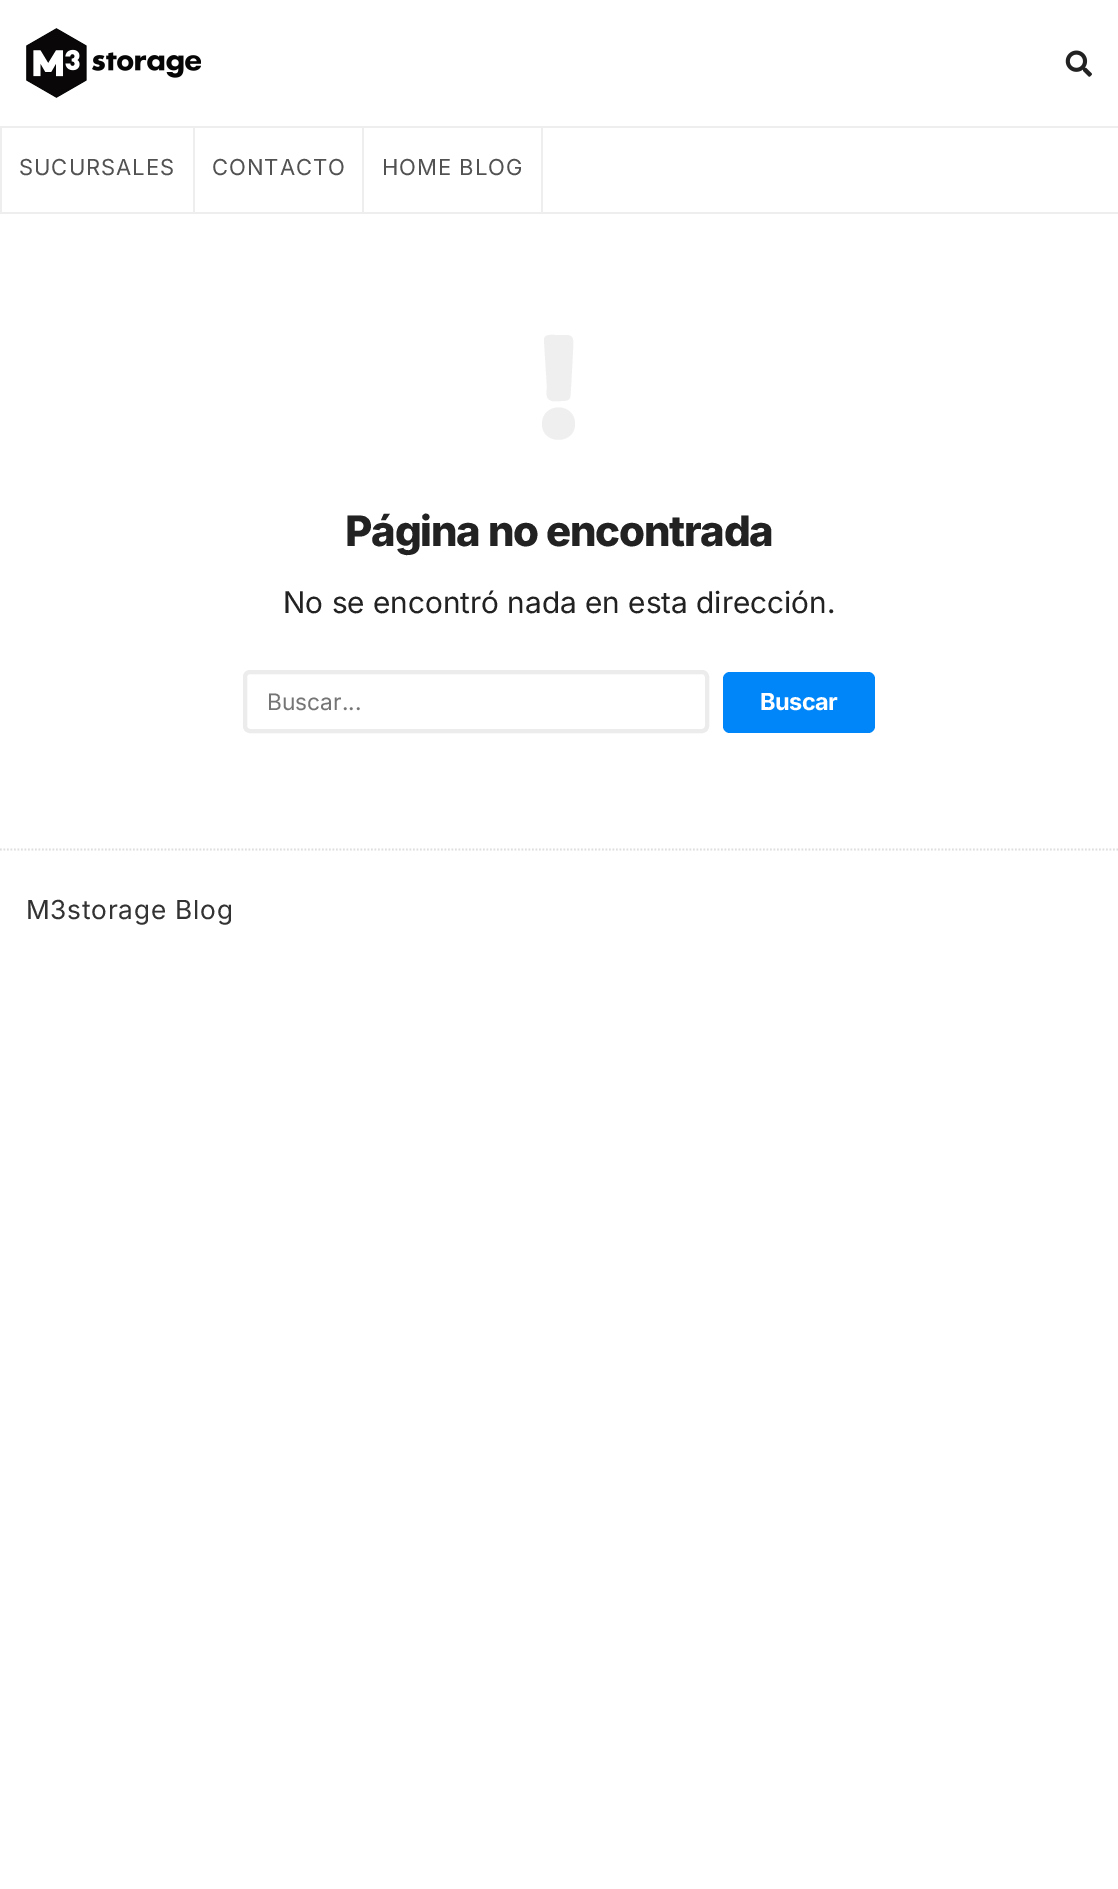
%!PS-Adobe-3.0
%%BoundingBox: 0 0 1118 1889
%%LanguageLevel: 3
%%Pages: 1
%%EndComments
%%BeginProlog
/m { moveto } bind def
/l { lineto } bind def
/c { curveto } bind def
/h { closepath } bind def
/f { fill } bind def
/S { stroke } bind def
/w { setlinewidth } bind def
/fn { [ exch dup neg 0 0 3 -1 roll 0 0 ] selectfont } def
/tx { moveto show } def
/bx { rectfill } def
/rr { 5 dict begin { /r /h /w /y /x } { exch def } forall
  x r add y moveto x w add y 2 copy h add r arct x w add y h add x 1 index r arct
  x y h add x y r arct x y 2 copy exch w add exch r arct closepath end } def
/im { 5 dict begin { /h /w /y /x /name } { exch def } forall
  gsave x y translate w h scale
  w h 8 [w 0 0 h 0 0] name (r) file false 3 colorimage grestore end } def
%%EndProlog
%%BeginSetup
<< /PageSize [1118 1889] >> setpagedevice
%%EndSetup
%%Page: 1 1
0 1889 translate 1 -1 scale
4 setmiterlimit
1 setgray
0 0 1118 1889 bx
0.933 setgray
193 126 2 86 bx
0 126 2 86 bx
362 126 2 86 bx
541 126 2 86 bx
0 126 1118 2 bx
(image0.raw) 26 28 175 70 im
(image1.raw) 1065 50 27 27 im
0 212 1118 2 bx
/Inter-Regular 22 fn
0.322 setgray
19 175 m 1 0 (SUCURSALES) ashow
212 175 m 1 0 (CONTACTO) ashow
382 175 m 1 0 (HOME BLOG) ashow
0.937 setgray
575 424 m 575 445 542 445 542 424 c 542 402 575 402 575 424 c h 544 340 m 547 387 l 547 390 545 398 550 400 c 552 402 558 401 561 401 c 572 401 570 398 571 387 c 573 350 l 573 340 575 335 565 335 c 555 335 l 551 335 544 334 544 340 c h f
/Inter-ExtraBold 42 fn
0.133 setgray
345 546 m -1.25 0 (Página no encontrada) ashow
/Inter-Regular 29.75 fn
(No se encontró nada en esta dirección.) 283 613 tx
0.925 setgray
4 w
245 672 462 59 5 rr S
/Inter-Regular 22.75 fn
0.459 setgray
(Buscar...) 267 710 tx
0 0.525 0.973 setrgbcolor
723 672 152 61 7 rr f
/Inter-Bold 23.5 fn
1 setgray
760 710 m -0.5 0 (Buscar) ashow
0.871 setgray
1.8 w
[1.75 1.75] 0 setdash
0 849.5 m 1118 849.5 l S
/Inter-Regular 26.25 fn
0.2 setgray
26 919 m 0.75 0 (M3storage Blog) ashow
showpage
%%EOF
